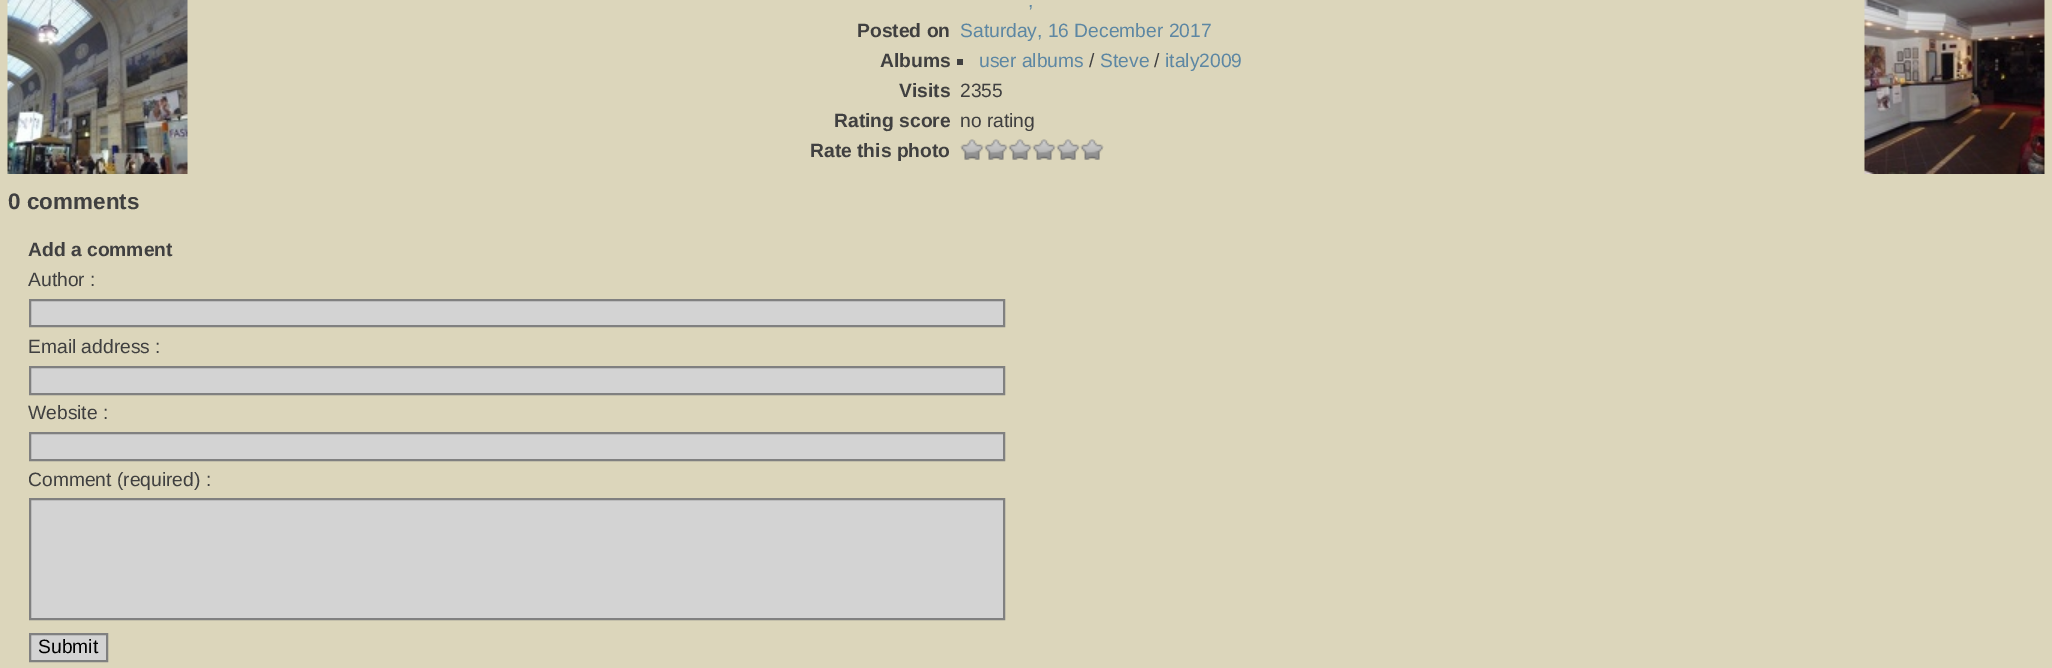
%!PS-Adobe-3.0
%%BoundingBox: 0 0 2052 668
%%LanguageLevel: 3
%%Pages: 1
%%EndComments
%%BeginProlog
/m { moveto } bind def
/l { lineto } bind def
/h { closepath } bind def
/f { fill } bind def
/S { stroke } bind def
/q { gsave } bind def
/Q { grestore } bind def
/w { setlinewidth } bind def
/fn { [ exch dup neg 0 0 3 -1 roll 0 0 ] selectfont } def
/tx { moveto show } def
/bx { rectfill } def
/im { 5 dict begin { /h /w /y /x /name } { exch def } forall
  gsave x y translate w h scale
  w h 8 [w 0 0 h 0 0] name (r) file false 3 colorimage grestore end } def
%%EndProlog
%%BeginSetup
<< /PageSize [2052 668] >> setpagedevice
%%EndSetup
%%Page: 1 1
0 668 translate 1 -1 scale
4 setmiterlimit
0.863 0.839 0.733 setrgbcolor
0 0 2052 668 bx
(image0.raw) 7 0 181 174 im
(image1.raw) 1864 0 181 174 im
/LiberationSans-Regular 19.25 fn
0.365 0.529 0.639 setrgbcolor
(,) 1028 7 tx
/LiberationSans-Bold 19.25 fn
0.251 setgray
(Posted on) 857 37 tx
/LiberationSans-Regular 19.25 fn
0.365 0.529 0.639 setrgbcolor
(Saturday, 16 December 2017) 960 37 tx
/LiberationSans-Bold 19.25 fn
0.251 setgray
(Albums) 880 67 tx
957 59 6 6 bx
/LiberationSans-Regular 19.25 fn
0.365 0.529 0.639 setrgbcolor
(user albums) 979 67 tx
0.251 setgray
(/) 1089 67 tx
0.365 0.529 0.639 setrgbcolor
(Steve) 1100 67 tx
0.251 setgray
(/) 1154 67 tx
0.365 0.529 0.639 setrgbcolor
(italy2009) 1165 67 tx
/LiberationSans-Bold 19.25 fn
0.251 setgray
(Visits) 899 97 tx
/LiberationSans-Regular 19.25 fn
(2355) 960 97 tx
/LiberationSans-Bold 19.25 fn
(Rating score) 834 127 tx
/LiberationSans-Regular 19.25 fn
(no rating) 960 127 tx
/LiberationSans-Bold 19.25 fn
(Rate this photo) 810 157 tx
(image2.raw) 960 139 24 21 im
(image2.raw) 984 139 24 21 im
(image2.raw) 1008 139 24 21 im
(image3.raw) 1032 139 24 21 im
(image4.raw) 1056 139 24 21 im
(image4.raw) 1080 139 24 21 im
/LiberationSans-Bold 22.5 fn
(0 comments) 8 209 tx
/LiberationSans-Bold 19.25 fn
(Add a comment) 28 256 tx
/LiberationSans-Regular 19.25 fn
(Author :) 28 286 tx
0.827 setgray
30 300 m 1004 300 l 1004 326 l 30 326 l h q f Q
0.502 setgray
2 w
S
0.251 setgray
(Email address :) 28 353 tx
0.827 setgray
30 367 m 1004 367 l 1004 394 l 30 394 l h q f Q
0.502 setgray
S
0.251 setgray
(Website :) 28 419 tx
0.827 setgray
30 433 m 1004 433 l 1004 460 l 30 460 l h q f Q
0.502 setgray
S
0.251 setgray
(Comment \(required\) :) 28 486 tx
0.827 setgray
30 499 m 1004 499 l 1004 619 l 30 619 l h q f Q
0.502 setgray
S
0.827 setgray
30 634 m 107 634 l 107 661 l 30 661 l h q f Q
0.502 setgray
S
0 setgray
(Submit) 38 653 tx
showpage
%%EOF
